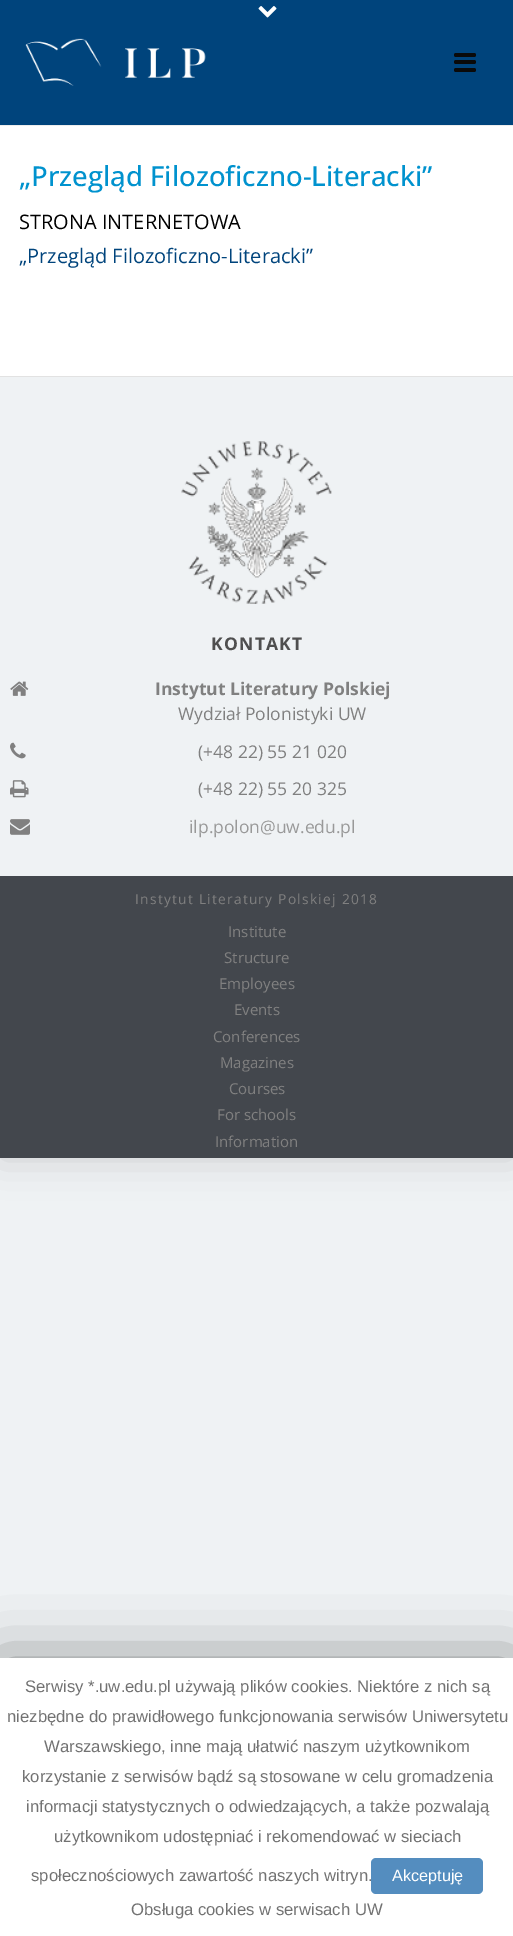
%!PS-Adobe-3.0
%%BoundingBox: 0 0 513 1936
%%LanguageLevel: 3
%%Pages: 1
%%EndComments
%%BeginProlog
/m { moveto } bind def
/f { fill } bind def
/fn { [ exch dup neg 0 0 3 -1 roll 0 0 ] selectfont } def
/tx { moveto show } def
/bx { rectfill } def
/al { dup .setfillconstantalpha .setstrokeconstantalpha } def
/rr { 5 dict begin { /r /h /w /y /x } { exch def } forall
  x r add y moveto x w add y 2 copy h add r arct x w add y h add x 1 index r arct
  x y h add x y r arct x y 2 copy exch w add exch r arct closepath end } def
/sh { 12 dict begin { /a /b /q /h /w /y /x } { exch def } forall gsave /was 0 def
  9 -2 -9 { dup b mul 4 div /e exch def 1 sub .425 mul 2.718 exch exp 1 add a .99 .min exch div /now exch def
    1 1 now sub 1 was sub div sub al /was now def
    w h .min e 2 mul add 0 gt { x e sub y e sub w e 2 mul add h e 2 mul add
      q e add b .6 mul add w h .min 2 div e add .min 0 .max rr fill } if } for grestore end } def
/im { 5 dict begin { /h /w /y /x /name } { exch def } forall
  gsave x y translate w h scale
  w h 8 [w 0 0 h 0 0] name (r) file false 3 colorimage grestore end } def
%%EndProlog
%%BeginSetup
<< /PageSize [513 1936] /PageUsesTransparency true >> setpagedevice
%%EndSetup
%%Page: 1 1
0 .pushpdf14devicefilter
0 1936 translate 1 -1 scale
4 setmiterlimit
0.937 0.949 0.957 setrgbcolor
0 0 513 1936 bx
0 setgray
0 0 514 1158 0 19 0.15 sh
0 0.267 0.486 setrgbcolor
0 0 513 125 bx
0.929 setgray
0 125 513 1 bx
(image0.raw) 258 6 19 12 im
(image1.raw) 25 38 181 48 im
0.039 setgray
454 53 22 4 2 rr f
454 60 22 4 2 rr f
454 68 22 4 2 rr f
1 setgray
0 126 513 250 bx
/OpenSans-Medium 27.5 fn
0 0.573 0.808 setrgbcolor
(„Przegląd Filozoficzno-Literacki”) 19 186 tx
/OpenSans-Regular 20 fn
0 setgray
(STRONA INTERNETOWA) 19 229 tx
0 0.267 0.486 setrgbcolor
(„Przegląd Filozoficzno-Literacki”) 19 263 tx
0.937 0.949 0.957 setrgbcolor
0 377 513 499 bx
0.886 setgray
0 376 513 1 bx
(image2.raw) 181 441 151 163 im
/OpenSans-Bold 17.5 fn
0.31 setgray
211 650 m 1.25 0 (KONTAKT) ashow
(image3.raw) 10 681 19 15 im
0.502 setgray
(Instytut Literatury Polskiej) 155 695 tx
/OpenSans-Regular 17.5 fn
(Wydział Polonistyki UW) 178 720 tx
(image4.raw) 10 742 16 17 im
(\(+48 22\) 55 21 020) 198 758 tx
(image5.raw) 10 780 19 18 im
(\(+48 22\) 55 20 325) 198 795 tx
(image6.raw) 10 819 20 16 im
0.6 setgray
(ilp.polon@uw.edu.pl) 189 833 tx
0.263 0.278 0.302 setrgbcolor
0 876 513 282 bx
/OpenSans-Regular 13.75 fn
0.502 setgray
135 904 m 1.25 0 (Instytut Literatury Polskiej 2018) ashow
/OpenSans-Regular 15 fn
(Institute) 228 937 tx
(Structure) 224 963 tx
(Employees) 219 989 tx
(Events) 234 1015 tx
(Conferences) 213 1042 tx
(Magazines) 220 1068 tx
(Courses) 229 1094 tx
(For schools) 217 1120 tx
(Information) 215 1147 tx
0 setgray
0 1664 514 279 0 31 0.5 sh
1 setgray
0 1658 513 278 bx
/LiberationSans-Regular 16.7 fn
0.447 setgray
(Serwisy *.uw.edu.pl używają plików cookies. Niektóre z nich są) 25 1692 tx
(niezbędne do prawidłowego funkcjonowania serwisów Uniwersytetu) 7 1722 tx
(Warszawskiego, inne mają ułatwić naszym użytkownikom) 44 1752 tx
(korzystanie z serwisów bądź są stosowane w celu gromadzenia) 22 1782 tx
(informacji statystycznych o odwiedzających, a także pozwalają) 26 1812 tx
(użytkownikom udostępniać i rekomendować w sieciach) 54 1842 tx
(społecznościowych zawartość naszych witryn.) 31 1881 tx
0.329 0.553 0.749 setrgbcolor
371 1858 112 36 5 rr f
/LiberationSans-Regular 16.25 fn
1 setgray
(Akceptuję) 392 1881 tx
/LiberationSans-Regular 16.7 fn
0.447 setgray
(Obsługa cookies w serwisach UW) 131 1915 tx
.poppdf14devicefilter showpage
%%EOF
